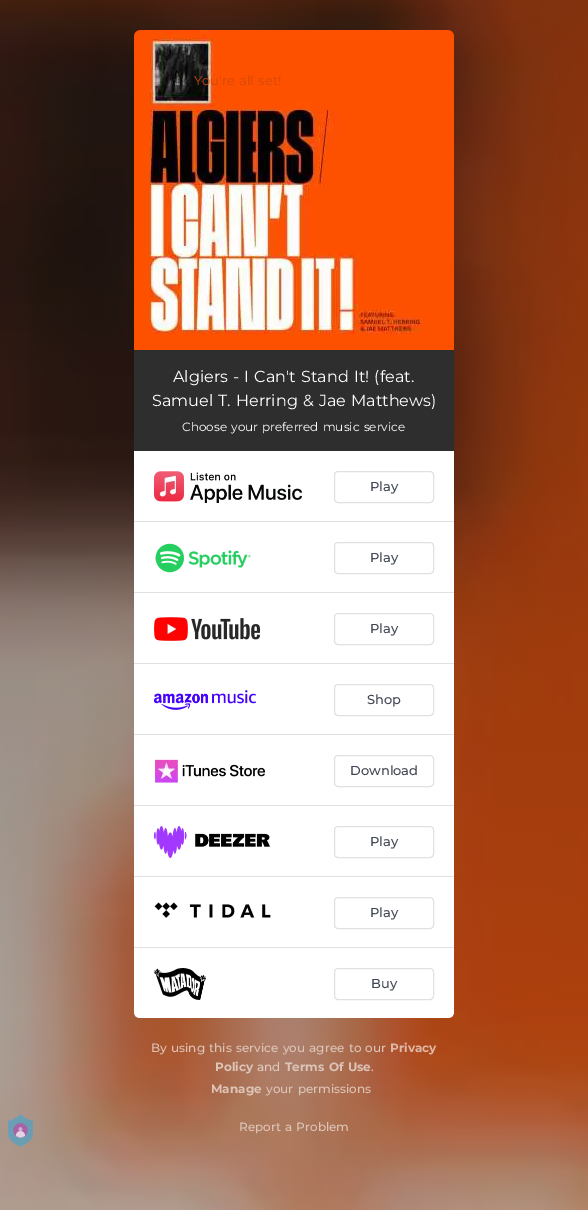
%!PS-Adobe-3.0
%%BoundingBox: 0 0 588 1210
%%LanguageLevel: 3
%%Pages: 1
%%EndComments
%%BeginProlog
/m { moveto } bind def
/l { lineto } bind def
/c { curveto } bind def
/h { closepath } bind def
/f { fill } bind def
/S { stroke } bind def
/fn { [ exch dup neg 0 0 3 -1 roll 0 0 ] selectfont } def
/tx { moveto show } def
/bx { rectfill } def
/rr { 5 dict begin { /r /h /w /y /x } { exch def } forall
  x r add y moveto x w add y 2 copy h add r arct x w add y h add x 1 index r arct
  x y h add x y r arct x y 2 copy exch w add exch r arct closepath end } def
/im { 5 dict begin { /h /w /y /x /name } { exch def } forall
  gsave x y translate w h scale
  w h 8 [w 0 0 h 0 0] name (r) file false 3 colorimage grestore end } def
%%EndProlog
%%BeginSetup
<< /PageSize [588 1210] >> setpagedevice
%%EndSetup
%%Page: 1 1
0 1210 translate 1 -1 scale
4 setmiterlimit
1 setgray
0 0 588 1210 bx
(image1.raw) 0 0 588 1210 im
(image0.raw) 8 1114 25 33 im
(image2.raw) 134 30 320 320 im
/Montserrat-Regular 13 fn
0.82 0.286 0.035 setrgbcolor
194 85 m 1 0 32 (You're all set!) widthshow
0.18 setgray
134 350 320 101 bx
/Montserrat-Regular 16 fn
1 setgray
173 382 m 1 0 32 (Algiers - I Can't Stand It! \(feat.) widthshow
152 406 m 1 0 32 (Samuel T. Herring & Jae Matthews\)) widthshow
/Montserrat-Regular 12 fn
182 431 m 1 0 32 (Choose your preferred music service) widthshow
134 451 m 454 451 l 454 1012 l 454 1015.5 451.5 1018 448 1018 c 140 1018 l 136.5 1018 134 1015.5 134 1012 c h f
0.882 0.882 0.894 setrgbcolor
134 521 320 1 bx
(image3.raw) 154 471 148 32 im
334.5 471.5 99 31 3.5 rr S
/Montserrat-Medium 13 fn
0.255 0.278 0.329 setrgbcolor
(Play) 370 491 tx
0.882 0.882 0.894 setrgbcolor
134 592 320 1 bx
(image4.raw) 155 543 96 30 im
334.5 542.5 99 31 3.5 rr S
0.255 0.278 0.329 setrgbcolor
(Play) 370 562 tx
0.882 0.882 0.894 setrgbcolor
134 663 320 1 bx
(image5.raw) 154 617 106 24 im
334.5 613.5 99 31 3.5 rr S
0.255 0.278 0.329 setrgbcolor
(Play) 370 633 tx
0.882 0.882 0.894 setrgbcolor
134 734 320 1 bx
(image6.raw) 154 690 102 20 im
334.5 684.5 99 31 3.5 rr S
0.255 0.278 0.329 setrgbcolor
(Shop) 367 704 tx
0.882 0.882 0.894 setrgbcolor
134 805 320 1 bx
(image7.raw) 155 759 111 24 im
334.5 755.5 99 31 3.5 rr S
0.255 0.278 0.329 setrgbcolor
(Download) 350 775 tx
0.882 0.882 0.894 setrgbcolor
134 876 320 1 bx
(image8.raw) 154 826 116 32 im
334.5 826.5 99 31 3.5 rr S
0.255 0.278 0.329 setrgbcolor
(Play) 370 846 tx
0.882 0.882 0.894 setrgbcolor
134 947 320 1 bx
(image9.raw) 154 902 117 16 im
334.5 897.5 99 31 3.5 rr S
0.255 0.278 0.329 setrgbcolor
(Play) 370 917 tx
(image10.raw) 154 968 52 32 im
0.882 0.882 0.894 setrgbcolor
334.5 968.5 99 31 3.5 rr S
0.255 0.278 0.329 setrgbcolor
(Buy) 371 988 tx
/Montserrat-Medium 12 fn
0.867 0.769 0.722 setrgbcolor
151 1052 m 1 0 32 (By using this service you agree to our) widthshow
/Montserrat-Bold 12 fn
0.875 0.722 0.655 setrgbcolor
(Privacy) 390 1052 tx
0.867 0.769 0.722 setrgbcolor
(Policy) 215 1071 tx
/Montserrat-Medium 12 fn
0.875 0.792 0.757 setrgbcolor
(and) 257 1071 tx
/Montserrat-Bold 12 fn
0.867 0.769 0.722 setrgbcolor
285 1071 m 1 0 32 (Terms Of Use) widthshow
/Montserrat-Medium 12 fn
(.) 371 1071 tx
/Montserrat-Bold 12 fn
(Manage) 211 1093 tx
/Montserrat-Medium 12 fn
266 1093 m 1 0 32 (your permissions) widthshow
239 1131 m 1 0 32 (Report a Problem) widthshow
showpage
%%EOF
